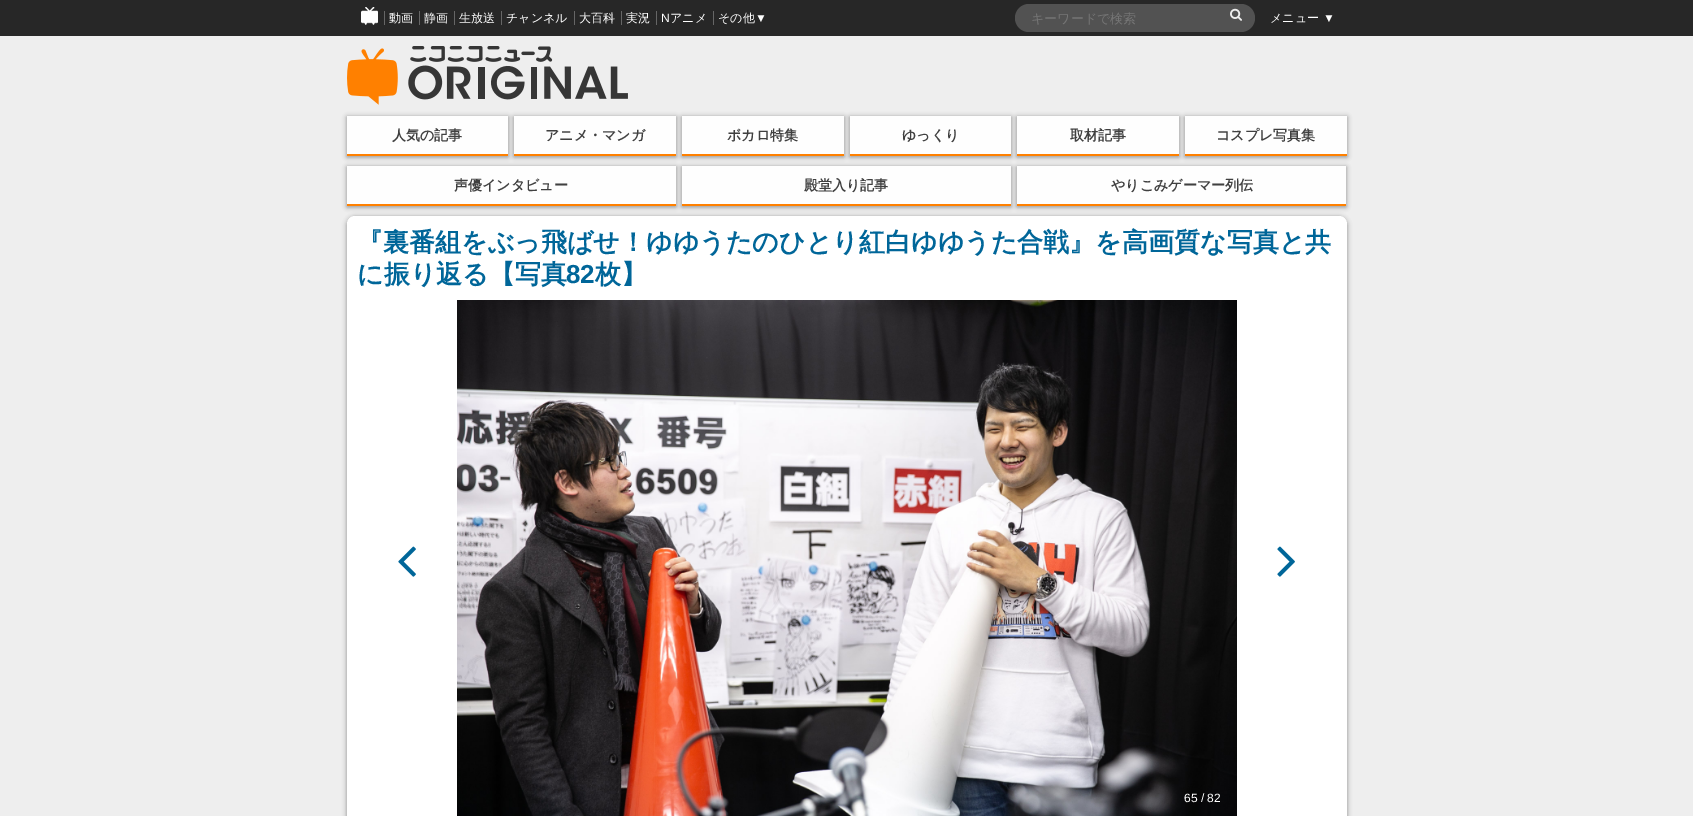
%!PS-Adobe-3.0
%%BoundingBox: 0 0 1693 816
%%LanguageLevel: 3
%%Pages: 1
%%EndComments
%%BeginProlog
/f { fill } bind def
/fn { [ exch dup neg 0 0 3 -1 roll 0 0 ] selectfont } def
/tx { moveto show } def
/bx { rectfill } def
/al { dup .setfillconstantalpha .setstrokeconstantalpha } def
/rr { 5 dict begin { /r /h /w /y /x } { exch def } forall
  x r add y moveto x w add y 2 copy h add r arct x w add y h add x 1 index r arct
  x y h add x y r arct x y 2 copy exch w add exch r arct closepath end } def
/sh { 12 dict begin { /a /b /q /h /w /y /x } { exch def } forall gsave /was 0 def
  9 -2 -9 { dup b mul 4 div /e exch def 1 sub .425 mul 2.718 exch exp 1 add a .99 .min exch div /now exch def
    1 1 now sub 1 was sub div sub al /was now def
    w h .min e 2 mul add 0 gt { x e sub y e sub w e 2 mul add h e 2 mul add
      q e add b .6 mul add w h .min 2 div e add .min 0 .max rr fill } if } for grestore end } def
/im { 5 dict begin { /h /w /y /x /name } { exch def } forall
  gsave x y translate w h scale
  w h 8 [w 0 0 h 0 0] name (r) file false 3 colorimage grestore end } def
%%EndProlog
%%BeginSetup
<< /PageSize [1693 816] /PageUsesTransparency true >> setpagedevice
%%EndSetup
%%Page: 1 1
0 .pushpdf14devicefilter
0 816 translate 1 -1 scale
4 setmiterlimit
0.933 setgray
0 0 1693 816 bx
0.153 setgray
0 0 1693 36 bx
0.4 setgray
384 11 1 14 bx
(image0.raw) 361 7 17 18 im
/WenQuanYiZenHei-Medium 12 fn
1 setgray
(動画) 389 22 tx
0.4 setgray
419 11 1 14 bx
1 setgray
(静画) 424 22 tx
0.4 setgray
454 11 1 14 bx
1 setgray
(生放送) 459 22 tx
0.4 setgray
501 11 1 14 bx
1 setgray
(チャンネル) 506 22 tx
0.4 setgray
574 11 1 14 bx
1 setgray
(大百科) 579 22 tx
0.4 setgray
621 11 1 14 bx
1 setgray
(実況) 626 22 tx
0.4 setgray
656 11 1 14 bx
/LiberationSans-Regular 12 fn
1 setgray
(N) 661 22 tx
/WenQuanYiZenHei-Medium 12 fn
(アニメ) 670 22 tx
0.4 setgray
713 11 1 14 bx
1 setgray
(その他) 718 22 tx
/LiberationSans-Regular 12 fn
(▼) 755 22 tx
0.322 setgray
1015 4 240 28 14 rr f
/WenQuanYiZenHei-Medium 13 fn
0.459 setgray
(キーワードで検索) 1031 23 tx
(image1.raw) 1230 8 12 13 im
/WenQuanYiZenHei-Medium 12 fn
1 setgray
(メニュー) 1270 22 tx
/LiberationSans-Regular 12 fn
(▼) 1323 22 tx
(image2.raw) 347 46 281 59 im
0 setgray
347 117 161 40 0 2.5 0.4 sh
0.996 setgray
347 116 161 38 bx
1 0.502 0 setrgbcolor
347 154 161 2 bx
/WenQuanYiZenHei-Bold 14 fn
0.251 setgray
(人気の記事) 392 140 tx
0 setgray
514 117 162 40 0 2.5 0.4 sh
0.996 setgray
514 116 162 38 bx
1 0.502 0 setrgbcolor
514 154 162 2 bx
0.251 setgray
(アニメ・マンガ) 545 140 tx
0 setgray
682 117 162 40 0 2.5 0.4 sh
0.996 setgray
682 116 162 38 bx
1 0.502 0 setrgbcolor
682 154 162 2 bx
0.251 setgray
(ボカロ特集) 727 140 tx
0 setgray
850 117 161 40 0 2.5 0.4 sh
0.996 setgray
850 116 161 38 bx
1 0.502 0 setrgbcolor
850 154 161 2 bx
0.251 setgray
(ゆっくり) 902 140 tx
0 setgray
1017 117 162 40 0 2.5 0.4 sh
0.996 setgray
1017 116 162 38 bx
1 0.502 0 setrgbcolor
1017 154 162 2 bx
0.251 setgray
(取材記事) 1070 140 tx
0 setgray
1185 117 162 40 0 2.5 0.4 sh
0.996 setgray
1185 116 162 38 bx
1 0.502 0 setrgbcolor
1185 154 162 2 bx
0.251 setgray
(コスプレ写真集) 1216 140 tx
0 setgray
347 167 329 40 0 2.5 0.4 sh
0.996 setgray
347 166 329 38 bx
1 0.502 0 setrgbcolor
347 204 329 2 bx
0.251 setgray
(声優インタビュー) 454 190 tx
0 setgray
682 167 329 40 0 2.5 0.4 sh
0.996 setgray
682 166 329 38 bx
1 0.502 0 setrgbcolor
682 204 329 2 bx
0.251 setgray
(殿堂入り記事) 804 190 tx
0 setgray
1017 167 329 40 0 2.5 0.4 sh
0.996 setgray
1017 166 329 38 bx
1 0.502 0 setrgbcolor
1017 204 329 2 bx
0.251 setgray
(やりこみゲーマー列伝) 1111 190 tx
0 setgray
347 217 1000 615 8 2.5 0.4 sh
1 setgray
347 216 1000 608 8 rr f
/WenQuanYiZenHei-Bold 26 fn
0 0.4 0.6 setrgbcolor
(『裏番組をぶっ飛ばせ！ゆゆうたのひとり紅白ゆゆうた合戦』を高画質な写真と共) 357 251 tx
(に振り返る【写真) 357 283 tx
/LiberationSans-Bold 26 fn
(82) 566 283 tx
/WenQuanYiZenHei-Bold 26 fn
(枚】) 595 283 tx
(image3.raw) 398 546 18 31 im
(image4.raw) 1277 546 18 31 im
(image5.raw) 457 300 780 516 im
/LiberationSans-Regular 12 fn
1 setgray
(65 / 82) 1184 802 tx
.poppdf14devicefilter showpage
%%EOF
